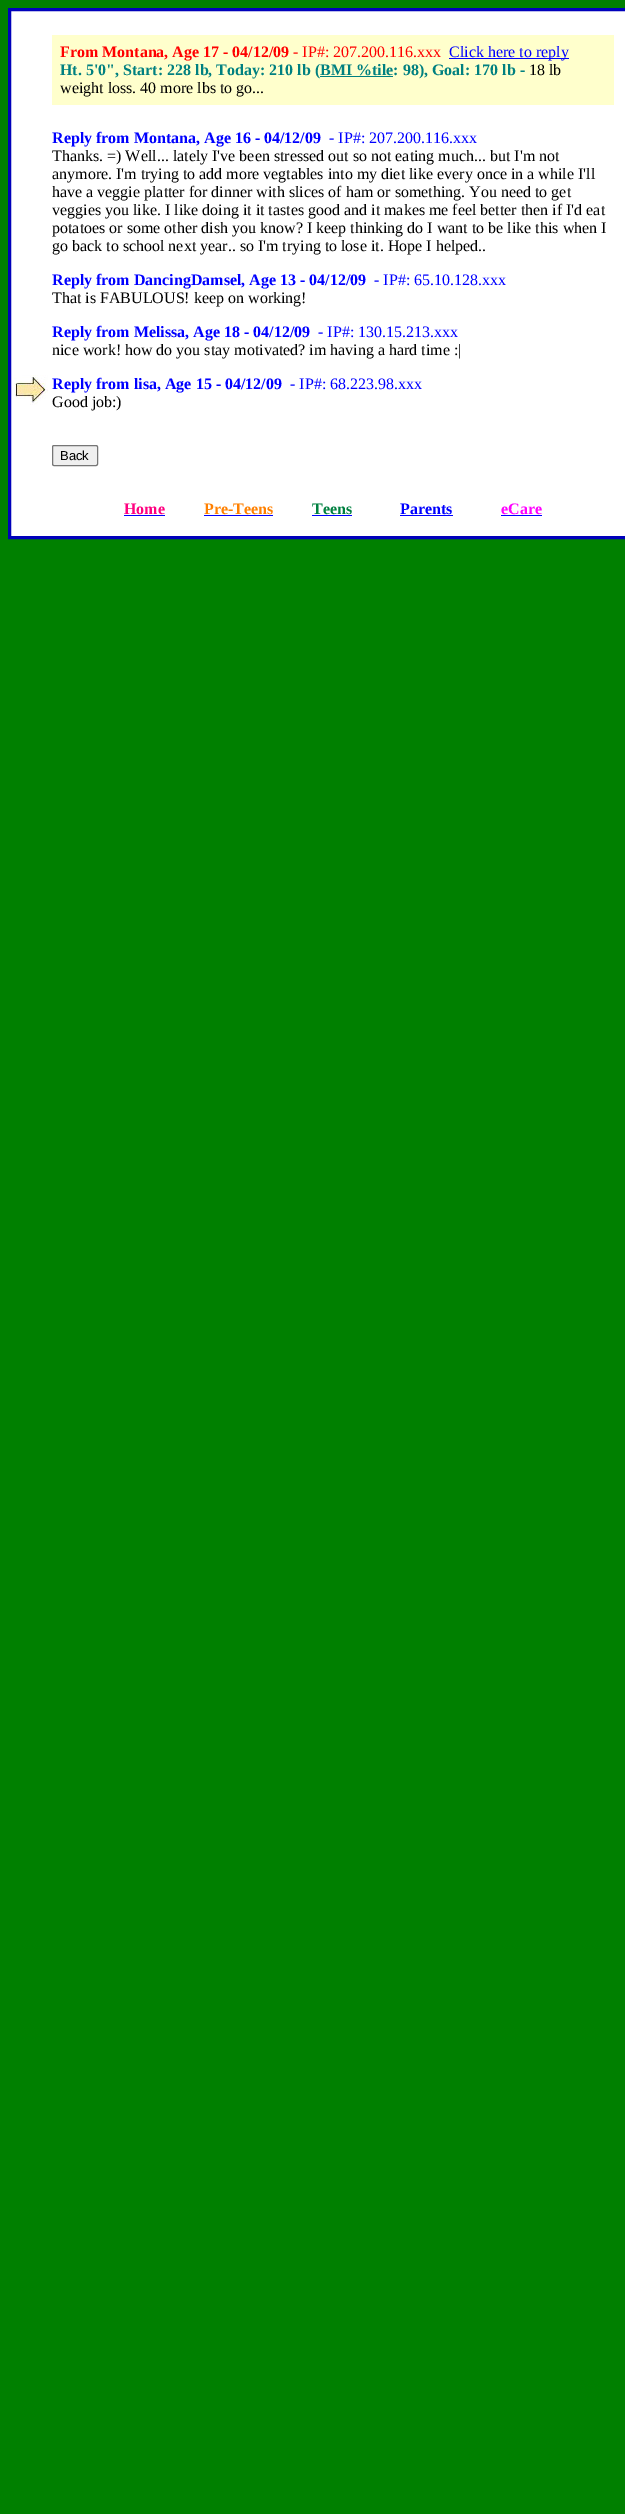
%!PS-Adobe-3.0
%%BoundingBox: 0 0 625 2514
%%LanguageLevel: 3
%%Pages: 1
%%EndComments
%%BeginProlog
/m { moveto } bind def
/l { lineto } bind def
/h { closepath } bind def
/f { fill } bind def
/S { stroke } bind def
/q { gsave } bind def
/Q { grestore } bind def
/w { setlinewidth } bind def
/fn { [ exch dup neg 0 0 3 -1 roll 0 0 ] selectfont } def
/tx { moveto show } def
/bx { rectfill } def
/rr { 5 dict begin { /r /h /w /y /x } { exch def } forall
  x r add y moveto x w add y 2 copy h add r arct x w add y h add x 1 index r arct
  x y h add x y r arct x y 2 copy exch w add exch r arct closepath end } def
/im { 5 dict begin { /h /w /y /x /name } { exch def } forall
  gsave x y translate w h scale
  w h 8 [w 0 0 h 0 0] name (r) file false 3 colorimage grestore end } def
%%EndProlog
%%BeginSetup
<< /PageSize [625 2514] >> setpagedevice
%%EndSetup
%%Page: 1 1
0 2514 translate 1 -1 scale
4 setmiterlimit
0 0.502 0 setrgbcolor
0 0 625 2514 bx
0 0 0.733 setrgbcolor
2 w
9 9 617 529 rectstroke
1 setgray
10.5 10.5 m 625.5 10.5 l 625.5 536.5 l 10.5 536.5 l h q f Q
0 0 0.733 setrgbcolor
1 w
S
1 1 0.8 setrgbcolor
52 35 562 70 bx
/LiberationSerif-Bold 16 fn
1 0 0 setrgbcolor
(From Montana, Age 17 - 04/12/09) 60 57 tx
/LiberationSerif-Regular 16 fn
(- IP#: 207.200.116.xxx) 293 57 tx
0 0 1 setrgbcolor
449 58 120 1 bx
(Click here to reply) 449 57 tx
/LiberationSerif-Bold 16 fn
0 0.502 0.502 setrgbcolor
(Ht. 5'0", Start: 228 lb, Today: 210 lb \(BMI %tile: 98\), Goal: 170 lb -) 60 75 tx
320 76 73 1 bx
/LiberationSerif-Regular 16 fn
0 setgray
(18 lb) 529 75 tx
(weight loss. 40 more lbs to go...) 60 93 tx
/LiberationSerif-Bold 16 fn
0 0 1 setrgbcolor
(Reply from Montana, Age 16 - 04/12/09) 52 143 tx
/LiberationSerif-Regular 16 fn
(- IP#: 207.200.116.xxx) 329 143 tx
0 setgray
(Thanks. =\) Well... lately I've been stressed out so not eating much... but I'm not) 52 161 tx
(anymore. I'm trying to add more vegtables into my diet like every once in a while I'll) 52 179 tx
(have a veggie platter for dinner with slices of ham or something. You need to get) 52 197 tx
(veggies you like. I like doing it it tastes good and it makes me feel better then if I'd eat) 52 215 tx
(potatoes or some other dish you know? I keep thinking do I want to be like this when I) 52 233 tx
(go back to school next year.. so I'm trying to lose it. Hope I helped..) 52 251 tx
/LiberationSerif-Bold 16 fn
0 0 1 setrgbcolor
(Reply from DancingDamsel, Age 13 - 04/12/09) 52 285 tx
/LiberationSerif-Regular 16 fn
(- IP#: 65.10.128.xxx) 374 285 tx
0 setgray
(That is FABULOUS! keep on working!) 52 303 tx
/LiberationSerif-Bold 16 fn
0 0 1 setrgbcolor
(Reply from Melissa, Age 18 - 04/12/09) 52 337 tx
/LiberationSerif-Regular 16 fn
(- IP#: 130.15.213.xxx) 318 337 tx
0 setgray
(nice work! how do you stay motivated? im having a hard time :|) 52 355 tx
(image0.raw) 14 375 34 30 im
/LiberationSerif-Bold 16 fn
0 0 1 setrgbcolor
(Reply from lisa, Age 15 - 04/12/09) 52 389 tx
/LiberationSerif-Regular 16 fn
(- IP#: 68.223.98.xxx) 290 389 tx
0 setgray
(Good job:\)) 52 407 tx
0.937 setgray
52.5 445.5 45 20 1.5 rr q f Q
0.463 setgray
S
/LiberationSans-Regular 13 fn
0 setgray
(Back) 60 460 tx
/LiberationSerif-Bold 16 fn
1 0 0.502 setrgbcolor
(Home) 124 514 tx
0 0 1 setrgbcolor
124 515 41 1 bx
1 0.502 0 setrgbcolor
(Pre-Teens) 204 514 tx
0 0 1 setrgbcolor
204 515 69 1 bx
0 0.502 0.251 setrgbcolor
(Teens) 312 514 tx
0 0 1 setrgbcolor
312 515 40 1 bx
(Parents) 400 514 tx
400 515 53 1 bx
1 0 1 setrgbcolor
(eCare) 501 514 tx
0 0 1 setrgbcolor
501 515 41 1 bx
showpage
%%EOF
